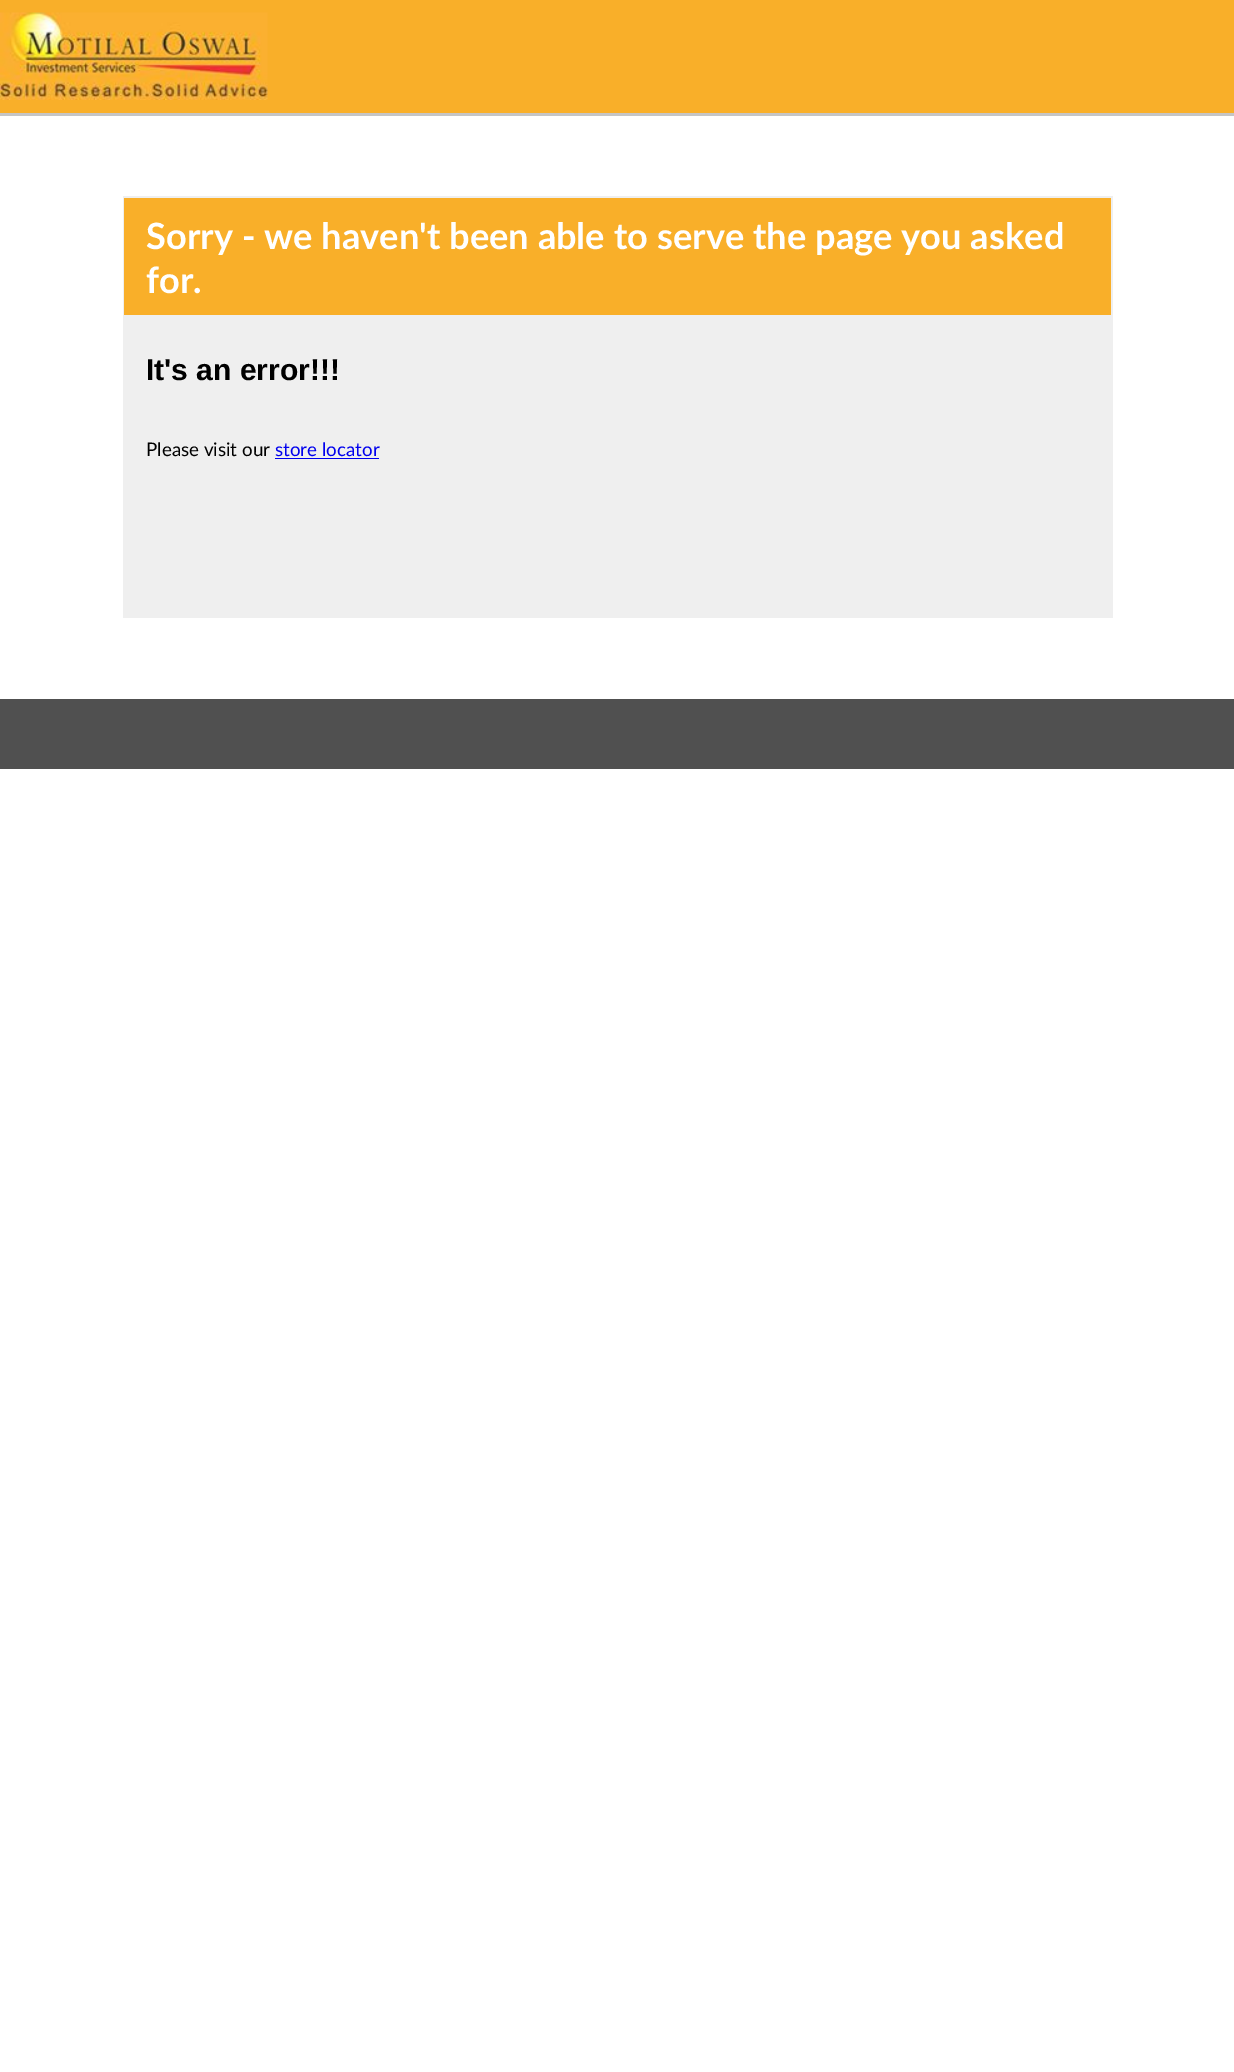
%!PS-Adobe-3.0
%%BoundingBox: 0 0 1234 2072
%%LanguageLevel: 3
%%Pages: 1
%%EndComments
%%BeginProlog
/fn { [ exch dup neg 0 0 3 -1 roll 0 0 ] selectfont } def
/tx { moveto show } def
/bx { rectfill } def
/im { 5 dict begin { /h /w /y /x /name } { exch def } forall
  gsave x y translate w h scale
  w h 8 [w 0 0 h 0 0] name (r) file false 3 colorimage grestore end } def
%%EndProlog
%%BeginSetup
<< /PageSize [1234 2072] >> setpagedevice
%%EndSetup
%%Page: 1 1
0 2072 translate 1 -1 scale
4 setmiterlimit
1 setgray
0 0 1234 2072 bx
0.976 0.686 0.161 setrgbcolor
0 0 1234 113 bx
0.773 setgray
0 113 1234 3 bx
(image0.raw) 0 12 268 88 im
0.937 setgray
123 196 990 422 bx
0.976 0.686 0.161 setrgbcolor
124 198 987 117 bx
/Lato-Bold 36.25 fn
1 setgray
(Sorry - we haven't been able to serve the page you asked) 146 249 tx
(for.) 146 293 tx
/LiberationSans-Bold 30 fn
0 setgray
(It's an error!!!) 146 380 tx
/Lato-Regular 18.75 fn
(Please visit our) 146 456 tx
0 0 0.933 setrgbcolor
(store locator) 275 456 tx
275 458 104 1 bx
0.314 setgray
0 699 1234 70 bx
showpage
%%EOF
